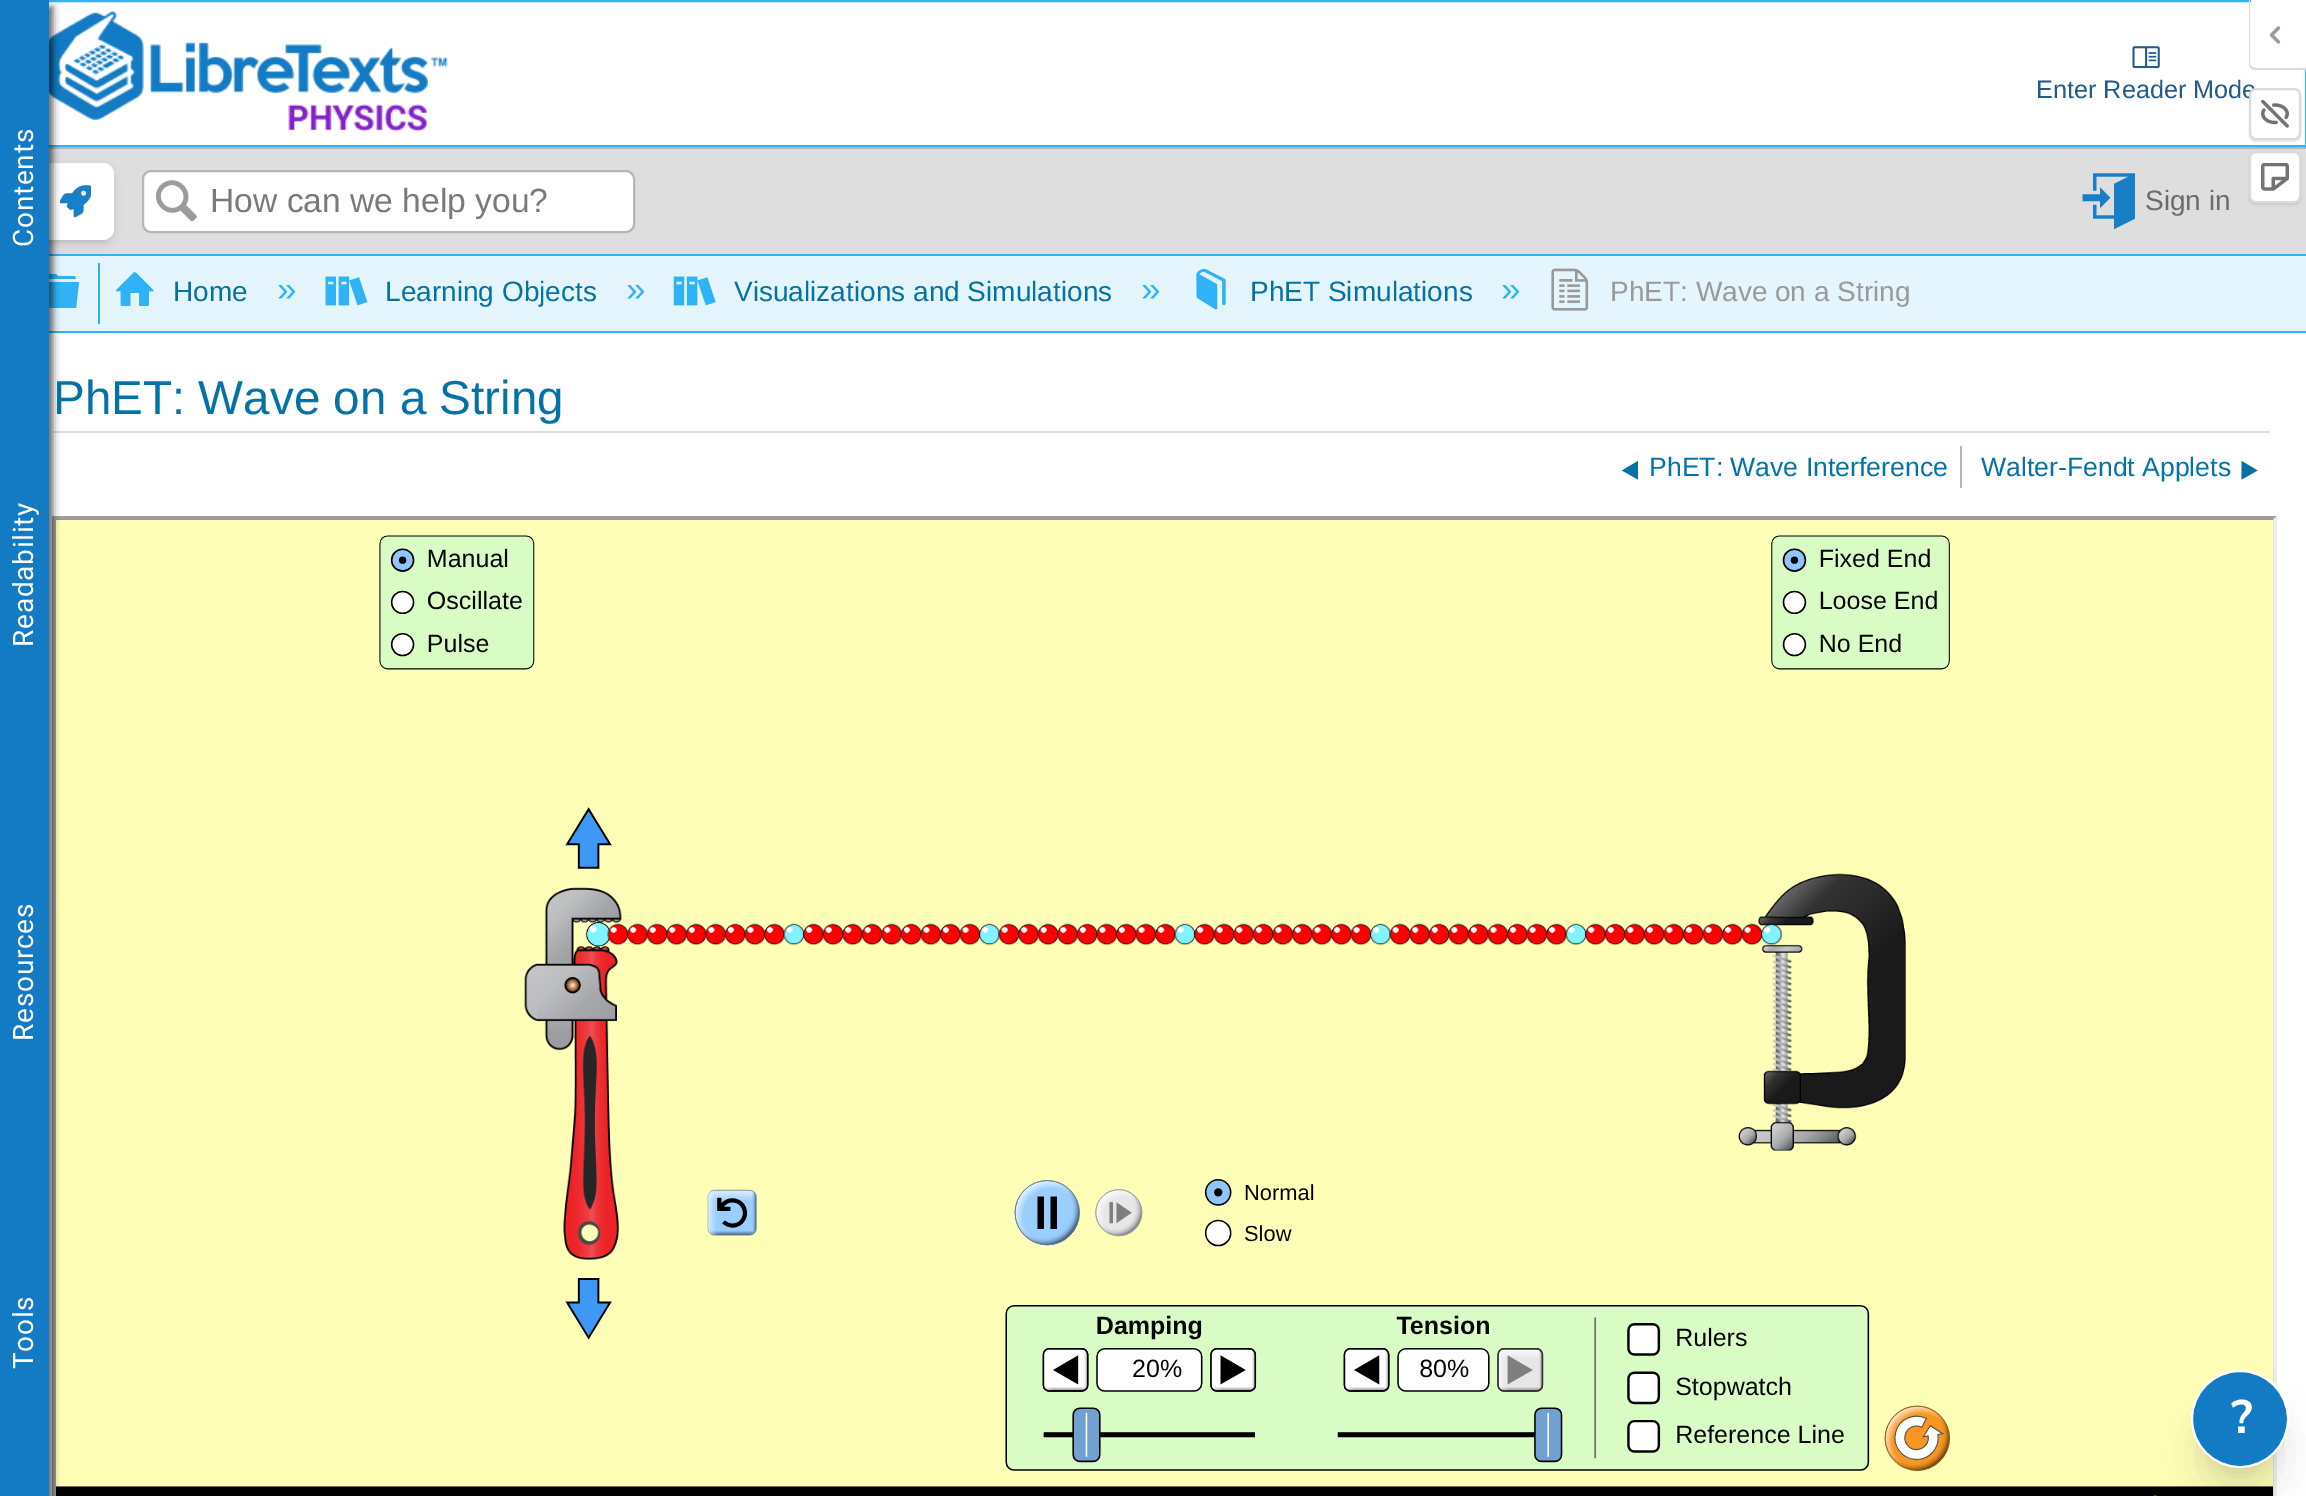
%!PS-Adobe-3.0
%%BoundingBox: 0 0 2306 1496
%%LanguageLevel: 3
%%Pages: 1
%%EndComments
%%BeginProlog
/m { moveto } bind def
/l { lineto } bind def
/c { curveto } bind def
/h { closepath } bind def
/f { fill } bind def
/S { stroke } bind def
/q { gsave } bind def
/Q { grestore } bind def
/w { setlinewidth } bind def
/fn { [ exch dup neg 0 0 3 -1 roll 0 0 ] selectfont } def
/tx { moveto show } def
/bx { rectfill } def
/al { dup .setfillconstantalpha .setstrokeconstantalpha } def
/ci { newpath 0 360 arc closepath } def
/rr { 5 dict begin { /r /h /w /y /x } { exch def } forall
  x r add y moveto x w add y 2 copy h add r arct x w add y h add x 1 index r arct
  x y h add x y r arct x y 2 copy exch w add exch r arct closepath end } def
/sh { 12 dict begin { /a /b /q /h /w /y /x } { exch def } forall gsave /was 0 def
  9 -2 -9 { dup b mul 4 div /e exch def 1 sub .425 mul 2.718 exch exp 1 add a .99 .min exch div /now exch def
    1 1 now sub 1 was sub div sub al /was now def
    w h .min e 2 mul add 0 gt { x e sub y e sub w e 2 mul add h e 2 mul add
      q e add b .6 mul add w h .min 2 div e add .min 0 .max rr fill } if } for grestore end } def
/im { 5 dict begin { /h /w /y /x /name } { exch def } forall
  gsave x y translate w h scale
  w h 8 [w 0 0 h 0 0] name (r) file false 3 colorimage grestore end } def
%%EndProlog
%%BeginSetup
<< /PageSize [2306 1496] /PageUsesTransparency true >> setpagedevice
%%EndSetup
%%Page: 1 1
0 .pushpdf14devicefilter
0 1496 translate 1 -1 scale
4 setmiterlimit
1 setgray
0 0 2306 1496 bx
0.188 0.702 0.965 setrgbcolor
2 w
1 1 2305 145 rectstroke
(image0.raw) 49 11 399 121 im
0.871 setgray
49 149 2257 105 bx
0.714 setgray
49 147 2257 2 bx
0.898 0.961 0.996 setrgbcolor
49 256 2257 75 bx
0.188 0.702 0.965 setrgbcolor
49 254 2257 2 bx
0.031 setgray
39 168 73 74 9 4.5 0.2 sh
1 setgray
37 163 77 77 11 rr f
(image2.raw) 60 185 31 33 im
0.188 0.702 0.965 setrgbcolor
49 331 2257 2 bx
37 282 m 79 282 l 76 308 l 39 308 l h 75 276 m 76 279 l 39 279 l 42 274 l 56 274 l 58 276 l h f
0.867 setgray
53 431 2217 2 bx
0.624 setgray
52 516 m 2277 516 l 2273 520 l 56 520 l h f
52 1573 m 52 516 l 56 520 l 56 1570 l h f
0.933 setgray
2277 516 m 2277 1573 l 2273 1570 l 2273 520 l h f
(image10.raw) 56 519 2218 977 im
0 setgray
4 7 49 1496 0 3.5 0.6 sh
0.071 0.482 0.769 setrgbcolor
0 0 49 1496 bx
/Roboto-Regular 28 fn
1 setgray
q 33 247 translate -90 rotate 0 0 m 0.75 0 (Contents) ashow Q
q 33 647 translate -90 rotate 0 0 m 0.75 0 (Readability) ashow Q
q 33 1041 translate -90 rotate 0 0 m 0.75 0 (Resources) ashow Q
q 33 1369 translate -90 rotate 0 0 m 0.75 0 (Tools) ashow Q
(image1.raw) 2132 46 28 23 im
/LiberationSans-Regular 25.25 fn
0.137 0.353 0.545 setrgbcolor
(Enter Reader Mode) 2036 98 tx
1 setgray
143 171 491 61 8 rr q f Q
0.714 setgray
S
(image3.raw) 156 180 41 42 im
/LiberationSans-Regular 33.6 fn
0.475 setgray
(How can we help you?) 210 212 tx
(image4.raw) 2082 173 53 57 im
/LiberationSans-Regular 28 fn
0.42 setgray
(Sign in) 2145 210 tx
0.188 0.702 0.965 setrgbcolor
98 263 2 61 bx
(image5.raw) 115 272 39 34 im
0.012 0.447 0.651 setrgbcolor
(Home) 173 301 tx
/LiberationSans-Regular 35 fn
0.188 0.702 0.965 setrgbcolor
(») 277 301 tx
(image6.raw) 325 276 43 30 im
/LiberationSans-Regular 28 fn
0.012 0.447 0.651 setrgbcolor
(Learning Objects) 385 301 tx
/LiberationSans-Regular 35 fn
0.188 0.702 0.965 setrgbcolor
(») 626 301 tx
(image7.raw) 673 276 43 30 im
/LiberationSans-Regular 28 fn
0.012 0.447 0.651 setrgbcolor
(Visualizations and Simulations) 734 301 tx
/LiberationSans-Regular 35 fn
0.188 0.702 0.965 setrgbcolor
(») 1141 301 tx
(image8.raw) 1196 268 30 42 im
/LiberationSans-Regular 28 fn
0.012 0.447 0.651 setrgbcolor
(PhET Simulations) 1250 301 tx
/LiberationSans-Regular 35 fn
0.188 0.702 0.965 setrgbcolor
(») 1501 301 tx
(image9.raw) 1551 268 38 43 im
/LiberationSans-Regular 28 fn
0.6 setgray
(PhET: Wave on a String) 1610 301 tx
/LiberationSans-Regular 47.6 fn
0.012 0.447 0.651 setrgbcolor
(PhET: Wave on a String) 53 414 tx
0.706 setgray
1960 446 2 42 bx
0.012 0.447 0.651 setrgbcolor
1638 461 m 1638 479.5 l 1622 470.5 l h f
/LiberationSans-Regular 26.6 fn
(PhET: Wave Interference) 1649 476 tx
(Walter-Fendt Applets) 1981 476 tx
2241.5 461 m 2241.5 479.5 l 2257.5 470.5 l h f
0 setgray
2202 1395 77 77 38.5 9 0.1 sh
2200 1414 80 81 40 22 0.1 sh
0.071 0.482 0.769 setrgbcolor
2240 1419 48 ci q f Q
1 setgray
S
/NunitoSans-Bold 47 fn
(?) 2231 1433 tx
2251 0 m 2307 0 l 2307 68 l 2256 68 l 2253 68 2251 66 2251 63 c h f
0.859 setgray
2249 0 m 2306 0 l 2306 70 l 2256 70 l 2252 70 2249 67 2249 63 c h 2250 0 m 2306 0 l 2306 68 l 2256 68 l 2253 68 2250 66 2250 63 c h eofill
(image11.raw) 2269 26 12 18 im
0 setgray
2249 89 52 53 7 1 0.1 sh
1 setgray
2250 89 50 50 6 rr q f Q
0.859 setgray
S
(image12.raw) 2261 100 28 28 im
0 setgray
2249 152 52 53 7 1 0.1 sh
1 setgray
2250 152 50 50 6 rr q f Q
0.859 setgray
S
(image13.raw) 2261 163 28 28 im
.poppdf14devicefilter showpage
%%EOF
